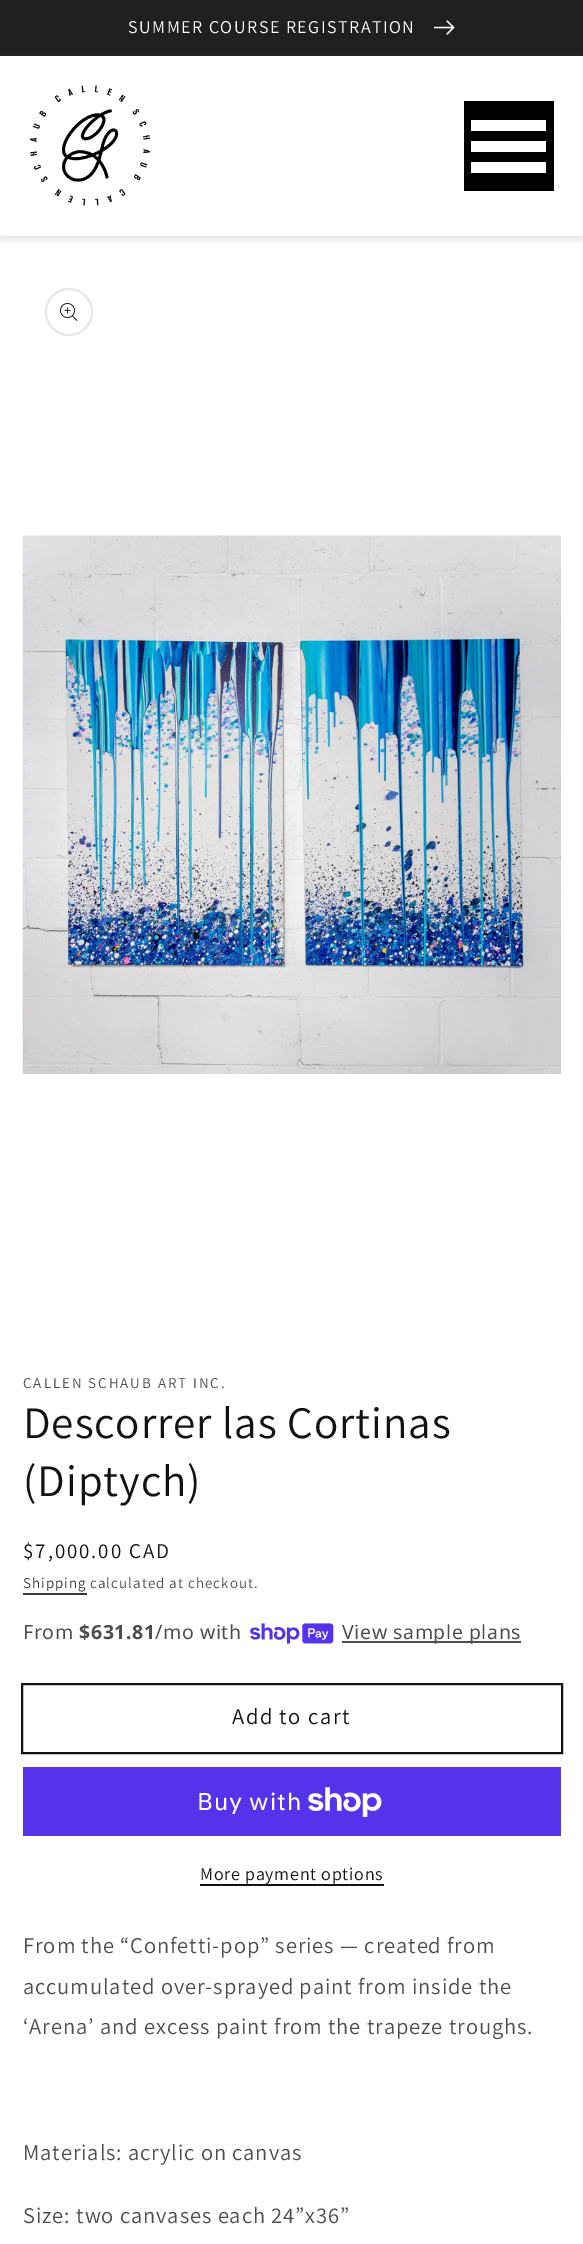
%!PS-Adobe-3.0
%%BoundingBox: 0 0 583 2244
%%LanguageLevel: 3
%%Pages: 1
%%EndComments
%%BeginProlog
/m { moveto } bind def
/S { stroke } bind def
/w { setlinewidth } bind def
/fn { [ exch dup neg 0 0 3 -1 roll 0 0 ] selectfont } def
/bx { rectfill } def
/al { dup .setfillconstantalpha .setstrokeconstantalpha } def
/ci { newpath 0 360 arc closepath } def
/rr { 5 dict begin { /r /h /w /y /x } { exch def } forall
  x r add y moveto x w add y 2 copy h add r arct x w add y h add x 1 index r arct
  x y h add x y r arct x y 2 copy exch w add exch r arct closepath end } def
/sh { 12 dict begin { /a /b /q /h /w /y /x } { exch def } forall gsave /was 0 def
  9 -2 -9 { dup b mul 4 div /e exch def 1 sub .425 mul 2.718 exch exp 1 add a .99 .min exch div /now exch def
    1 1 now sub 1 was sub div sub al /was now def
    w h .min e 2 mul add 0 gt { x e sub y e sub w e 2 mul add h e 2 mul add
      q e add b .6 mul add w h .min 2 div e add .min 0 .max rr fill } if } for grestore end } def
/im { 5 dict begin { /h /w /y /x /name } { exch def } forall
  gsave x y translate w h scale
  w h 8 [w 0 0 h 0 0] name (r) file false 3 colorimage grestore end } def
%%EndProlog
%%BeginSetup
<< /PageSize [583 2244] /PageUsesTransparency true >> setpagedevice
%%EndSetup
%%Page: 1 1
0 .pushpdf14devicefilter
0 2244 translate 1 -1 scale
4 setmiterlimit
1 setgray
0 0 583 2244 bx
0 setgray
0 60 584 180 0 4 0.1 sh
0.145 setgray
0 54 583 2 bx
0.125 setgray
0 0 583 54 bx
/Assistant-Regular 18 fn
1 setgray
128 33 m 1.5 0 (SUMMER COURSE REGISTRATION) ashow
(image0.raw) 434 20 21 15 im
0 56 583 180 bx
(image1.raw) 30 85 120 121 im
0 setgray
464 101 90 90 bx
1 setgray
471 120 75 11 bx
471 141 75 11 bx
471 162 75 11 bx
0.906 setgray
2 w
69 312 23 ci S
(image2.raw) 60 303 18 18 im
(image3.raw) 22 535 539 539 im
/Assistant-Regular 15 fn
0.302 setgray
23 1388 m 1.95 0 (CALLEN SCHAUB ART INC.) ashow
/Assistant-Regular 45 fn
0.071 setgray
23 1438 m 0.9 0 (Descorrer las Cortinas) ashow
23 1496 m 0.9 0 (\(Diptych\)) ashow
/Assistant-Regular 21 fn
23 1558 m 1.95 0 ($7,000.00 CAD) ashow
/Assistant-Regular 15 fn
0.212 setgray
23 1588 m 1.05 0 (Shipping) ashow
23 1593 64 2 bx
0.302 setgray
90 1588 m 1.05 0 (calculated at checkout.) ashow
/NotoSans-Regular 19.5 fn
23 1639 m 0.6 0 (From) ashow
/NotoSans-Bold 19.5 fn
79 1639 m 0.6 0 ($631.81) ashow
/NotoSans-Regular 19.5 fn
155 1639 m 0.6 0 (/mo with) ashow
(image4.raw) 250 1623 84 21 im
342 1641 179 2 bx
342 1639 m 0.6 0 (View sample plans) ashow
0.071 setgray
22 1684 540 69 rectstroke
/Assistant-Regular 22.5 fn
232 1724 m 1.5 0 (Add to cart) ashow
0.329 0.2 0.922 setrgbcolor
23 1767 538 69 bx
/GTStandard-Regular 24 fn
1 setgray
197 1810 m 0.9 0 (Buy with) ashow
(image5.raw) 308 1787 74 30 im
/Assistant-Regular 18 fn
0.071 setgray
200 1880 m 0.75 0 (More payment options) ashow
200 1884 184 2 bx
/Assistant-Regular 22.5 fn
0.302 setgray
23 1953 m 0.9 0 (From the “Confetti-pop” series — created from) ashow
23 1994 m 0.9 0 (accumulated over-sprayed paint from inside the) ashow
23 2034 m 0.9 0 (‘Arena’ and excess paint from the trapeze troughs.) ashow
23 2160 m 0.9 0 (Materials: acrylic on canvas) ashow
23 2223 m 0.9 0 (Size: two canvases each 24”x36”) ashow
.poppdf14devicefilter showpage
%%EOF
